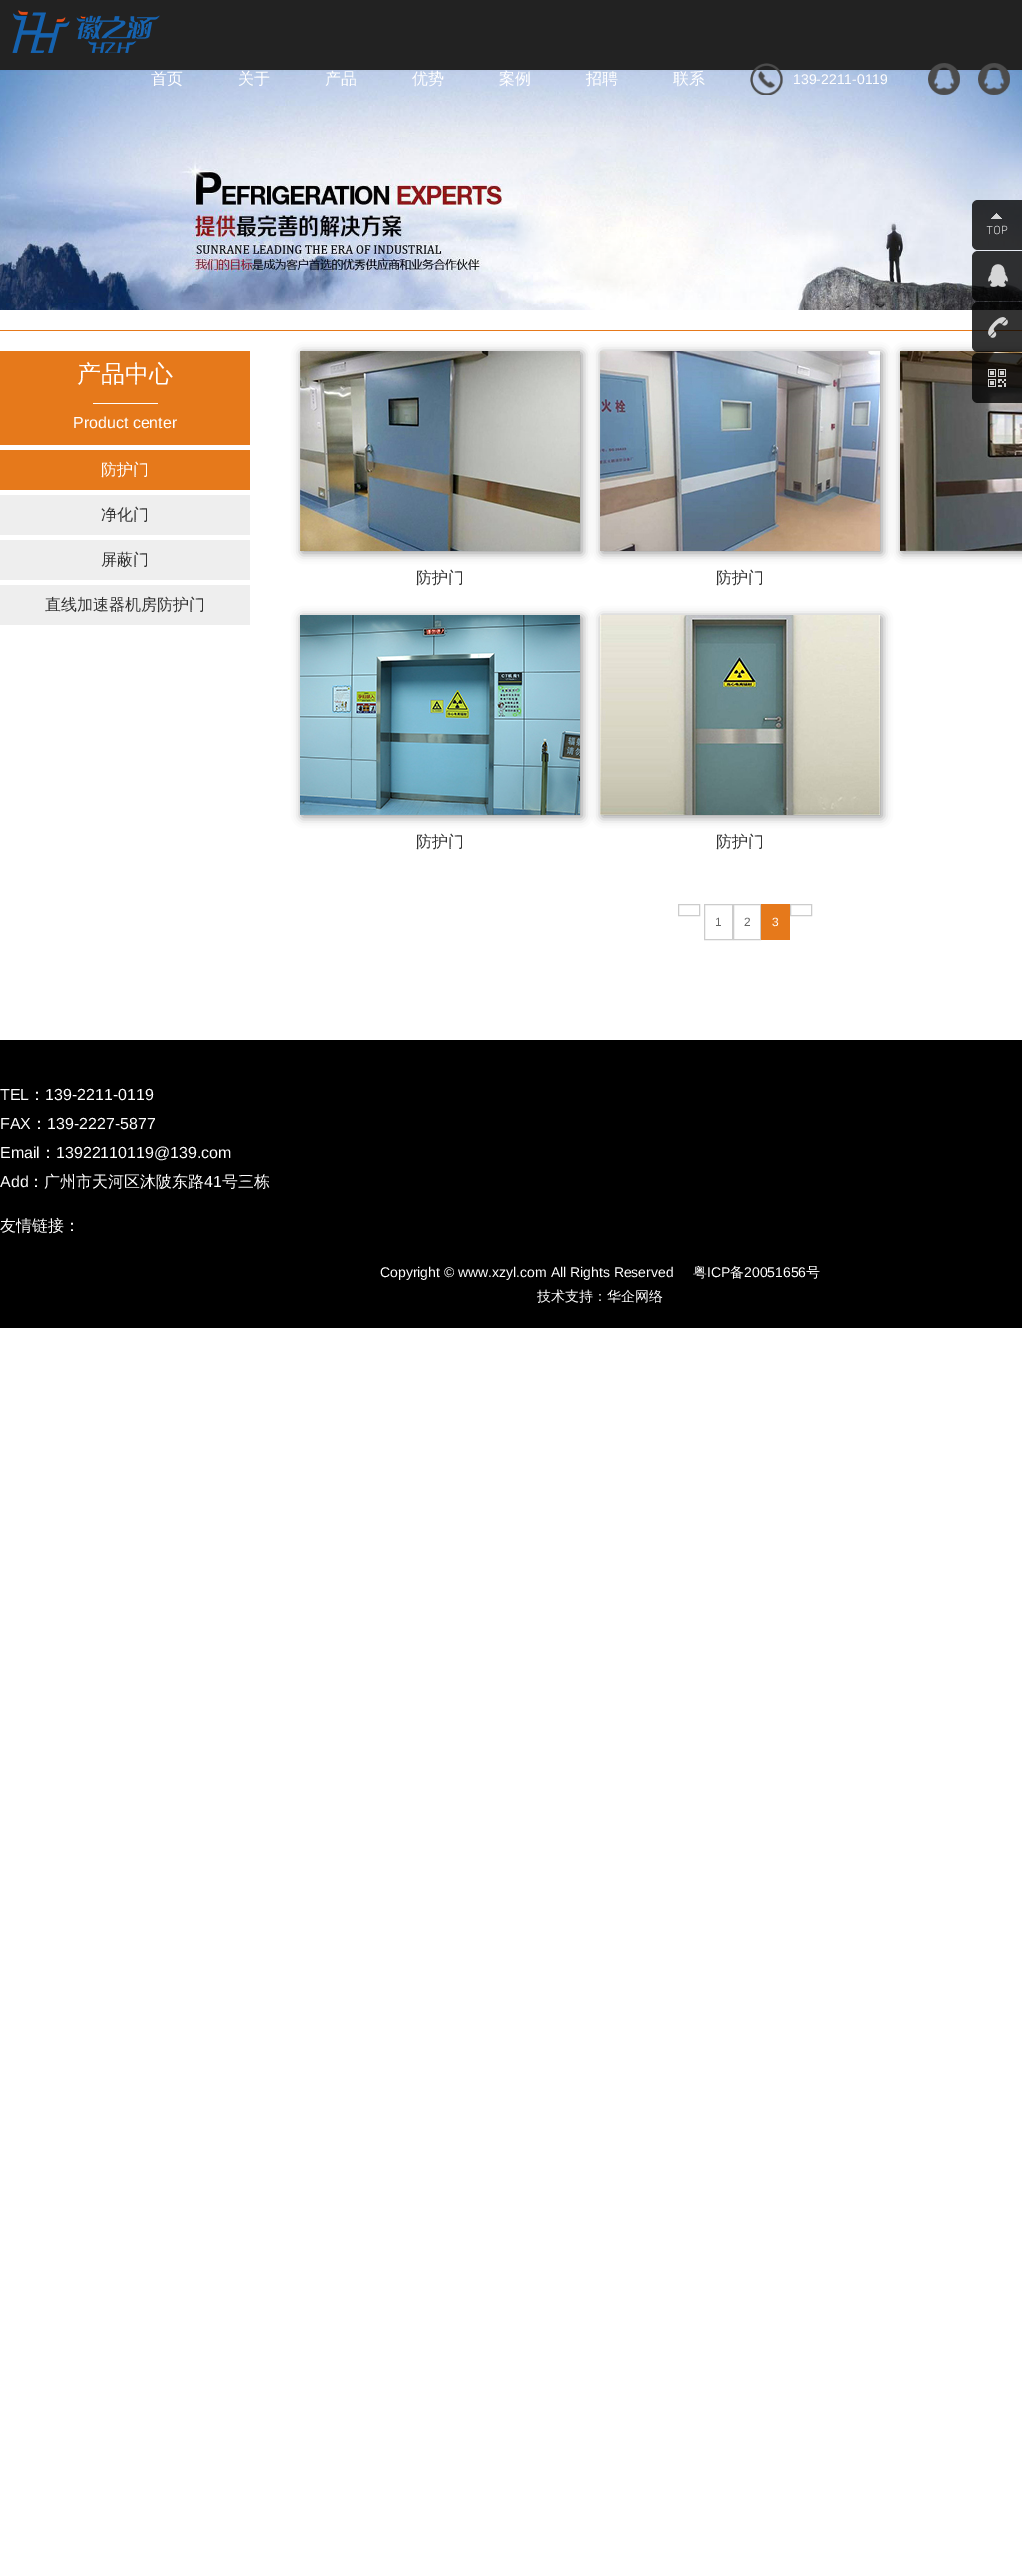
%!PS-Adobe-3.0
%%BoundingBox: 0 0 1022 2575
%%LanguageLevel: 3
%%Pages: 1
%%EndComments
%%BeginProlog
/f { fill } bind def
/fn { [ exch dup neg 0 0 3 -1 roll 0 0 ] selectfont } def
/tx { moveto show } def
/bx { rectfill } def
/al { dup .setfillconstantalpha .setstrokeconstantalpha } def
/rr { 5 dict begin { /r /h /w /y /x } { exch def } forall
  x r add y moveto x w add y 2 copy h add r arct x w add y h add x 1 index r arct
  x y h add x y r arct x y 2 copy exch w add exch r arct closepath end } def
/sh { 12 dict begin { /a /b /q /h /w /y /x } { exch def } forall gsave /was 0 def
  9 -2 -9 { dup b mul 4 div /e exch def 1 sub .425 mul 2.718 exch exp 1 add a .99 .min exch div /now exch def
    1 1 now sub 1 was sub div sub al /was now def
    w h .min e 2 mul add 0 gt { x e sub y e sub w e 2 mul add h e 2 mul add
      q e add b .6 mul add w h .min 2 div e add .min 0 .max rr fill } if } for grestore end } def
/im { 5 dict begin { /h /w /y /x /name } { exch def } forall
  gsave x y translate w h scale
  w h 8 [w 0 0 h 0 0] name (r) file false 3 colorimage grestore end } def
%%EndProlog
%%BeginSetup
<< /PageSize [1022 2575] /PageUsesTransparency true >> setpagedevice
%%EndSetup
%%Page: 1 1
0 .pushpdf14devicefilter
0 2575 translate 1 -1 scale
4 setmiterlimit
1 setgray
0 0 1022 2575 bx
(image0.raw) 0 70 1022 240 im
0.133 setgray
0 0 1022 70 bx
(image1.raw) 12 10 148 43 im
/WenQuanYiZenHei-Medium 16 fn
1 setgray
(首页) 151 84 tx
(关于) 238 84 tx
(产品) 325 84 tx
(优势) 412 84 tx
(案例) 499 84 tx
(招聘) 586 84 tx
(联系) 673 84 tx
(image2.raw) 750 63 33 32 im
/LiberationSans-Regular 14 fn
(139-2211-0119) 793 84 tx
(image3.raw) 928 63 32 32 im
(image4.raw) 978 63 32 32 im
0.8 al
0 setgray
972 200 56 50 6 rr f
1 al
(image5.raw) 986 213 22 22 im
0.8 al
972 251 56 50 6 rr f
1 al
(image6.raw) 988 264 20 23 im
0.902 0.475 0.106 setrgbcolor
0 330 1022 1 bx
0.565 setgray
902 353 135 200 0 5 1 sh
(image9.raw) 900 351 122 200 im
0.8 al
0 setgray
972 302 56 50 6 rr f
1 al
(image7.raw) 988 317 20 21 im
0.8 al
972 353 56 50 6 rr f
1 al
(image8.raw) 988 369 18 18 im
0.902 0.475 0.106 setrgbcolor
0 351 250 94 bx
/WenQuanYiZenHei-Medium 24 fn
1 setgray
(产品中心) 77 382 tx
93 403 65 1 bx
/LiberationSans-Regular 16 fn
(Product center) 73 428 tx
0.902 0.475 0.106 setrgbcolor
0 450 250 40 bx
/WenQuanYiZenHei-Medium 16 fn
1 setgray
(防护门) 101 475 tx
0.933 setgray
0 495 250 40 bx
0.2 setgray
(净化门) 101 520 tx
0.933 setgray
0 540 250 40 bx
0.2 setgray
(屏蔽门) 101 565 tx
0.933 setgray
0 585 250 40 bx
0.2 setgray
(直线加速器机房防护门) 45 610 tx
0.565 setgray
302 353 280 200 0 5 1 sh
(image10.raw) 300 351 280 200 im
0.2 setgray
(防护门) 416 583 tx
0.565 setgray
602 353 280 200 0 5 1 sh
(image11.raw) 600 351 280 200 im
0.2 setgray
(防护门) 716 583 tx
0.565 setgray
302 617 280 200 0 5 1 sh
(image12.raw) 300 615 280 200 im
0.2 setgray
(防护门) 416 847 tx
0.565 setgray
602 617 280 200 0 5 1 sh
(image13.raw) 600 615 280 200 im
0.2 setgray
(防护门) 716 847 tx
0.8 setgray
678.5 904.5 21 11 rectstroke
790.5 904.5 21 11 rectstroke
704.5 904.5 28 35 rectstroke
/LiberationSans-Regular 12 fn
0.4 setgray
(1) 715 926 tx
0.8 setgray
733.5 904.5 27 35 rectstroke
0.4 setgray
(2) 744 926 tx
0.902 0.475 0.106 setrgbcolor
761 904 29 36 bx
1 setgray
(3) 772 926 tx
0 setgray
0 1040 1022 288 bx
/LiberationSans-Regular 16 fn
1 setgray
(TEL) 0 1100 tx
/WenQuanYiZenHei-Medium 16 fn
(：) 29 1100 tx
/LiberationSans-Regular 16 fn
(139-2211-0119) 45 1100 tx
(FAX) 0 1129 tx
/WenQuanYiZenHei-Medium 16 fn
(：) 31 1129 tx
/LiberationSans-Regular 16 fn
(139-2227-5877) 47 1129 tx
(Email) 0 1158 tx
/WenQuanYiZenHei-Medium 16 fn
(：) 40 1158 tx
/LiberationSans-Regular 16 fn
(13922110119@139.com) 56 1158 tx
(Add) 0 1187 tx
/WenQuanYiZenHei-Medium 16 fn
(：广州市天河区沐陂东路) 28 1187 tx
/LiberationSans-Regular 16 fn
(41) 204 1187 tx
/WenQuanYiZenHei-Medium 16 fn
(号三栋) 222 1187 tx
(友情链接：) 0 1231 tx
/LiberationSans-Regular 14 fn
(Copyright © www.xzyl.com All Rights Reserved) 380 1277 tx
/WenQuanYiZenHei-Medium 14 fn
(粤) 693 1277 tx
/LiberationSans-Regular 14 fn
(ICP) 707 1277 tx
/WenQuanYiZenHei-Medium 14 fn
(备) 730 1277 tx
/LiberationSans-Regular 14 fn
(20051656) 744 1277 tx
/WenQuanYiZenHei-Medium 14 fn
(号) 806 1277 tx
(技术支持：华企网络) 537 1301 tx
.poppdf14devicefilter showpage
%%EOF
